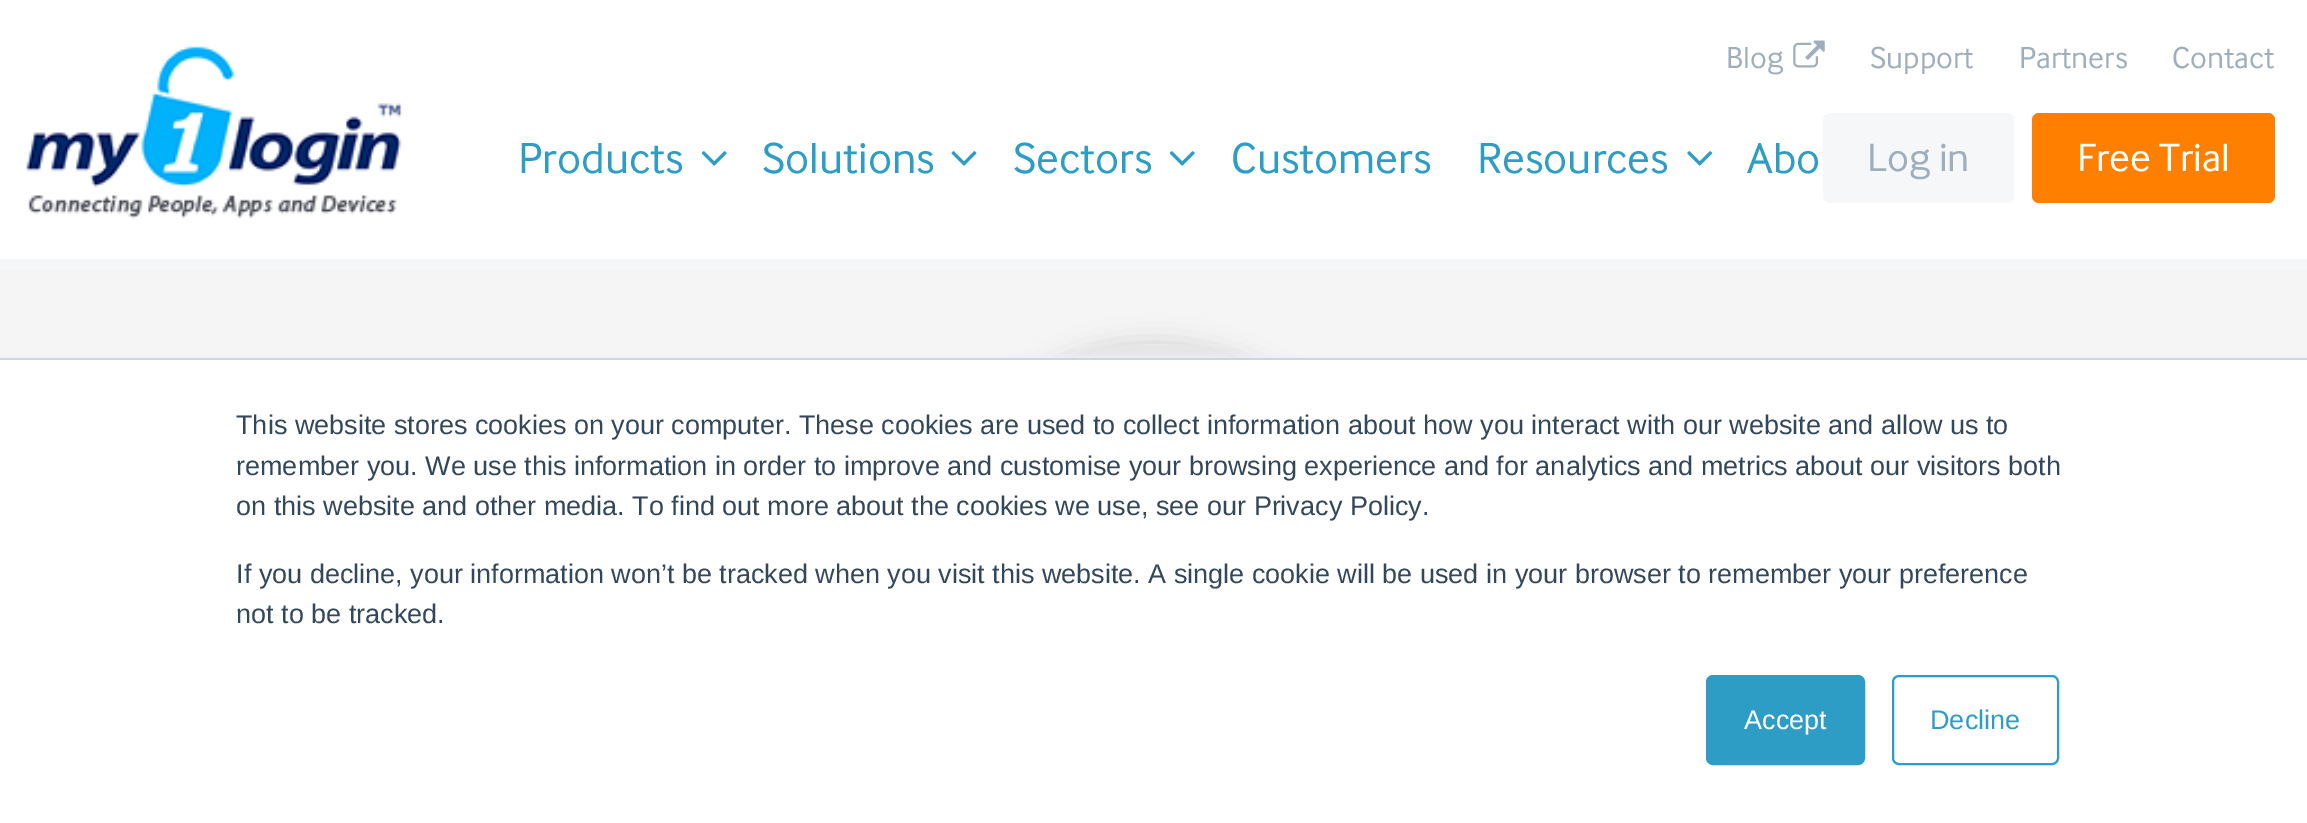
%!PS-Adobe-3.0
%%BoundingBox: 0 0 2307 823
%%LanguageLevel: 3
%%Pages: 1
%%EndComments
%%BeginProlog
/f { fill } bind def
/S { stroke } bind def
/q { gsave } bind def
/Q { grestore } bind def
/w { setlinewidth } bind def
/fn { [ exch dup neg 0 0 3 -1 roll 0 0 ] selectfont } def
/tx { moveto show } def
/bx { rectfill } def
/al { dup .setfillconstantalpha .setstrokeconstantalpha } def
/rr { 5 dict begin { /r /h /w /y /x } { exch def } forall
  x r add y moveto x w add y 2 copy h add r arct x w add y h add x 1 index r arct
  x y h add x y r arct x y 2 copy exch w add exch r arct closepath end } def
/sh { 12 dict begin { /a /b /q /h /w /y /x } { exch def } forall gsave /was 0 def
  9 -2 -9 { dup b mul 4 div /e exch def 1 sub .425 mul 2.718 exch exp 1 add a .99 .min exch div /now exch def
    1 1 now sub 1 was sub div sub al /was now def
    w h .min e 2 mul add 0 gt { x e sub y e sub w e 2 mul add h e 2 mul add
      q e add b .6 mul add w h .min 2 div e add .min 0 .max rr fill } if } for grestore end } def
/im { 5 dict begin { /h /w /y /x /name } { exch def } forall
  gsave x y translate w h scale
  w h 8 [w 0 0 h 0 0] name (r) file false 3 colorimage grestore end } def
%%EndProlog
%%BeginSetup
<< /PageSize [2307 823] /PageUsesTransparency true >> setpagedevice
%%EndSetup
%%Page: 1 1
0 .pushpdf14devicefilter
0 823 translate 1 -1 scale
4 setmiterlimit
1 setgray
0 0 2307 823 bx
0.965 0.969 0.976 setrgbcolor
0 259 2307 11 bx
(image0.raw) 26 45 376 174 im
/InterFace-Regular 31.5 fn
0.62 0.682 0.741 setrgbcolor
(Blog) 1726 68 tx
(image1.raw) 1793 40 32 28 im
(Support) 1870 68 tx
(Partners) 2019 68 tx
(Contact) 2172 68 tx
/InterFace-Regular 45 fn
0.176 0.616 0.773 setrgbcolor
(Products) 518 173 tx
(image2.raw) 701 151 26 15 im
(Solutions) 762 173 tx
(image3.raw) 951 151 26 15 im
(Sectors) 1013 173 tx
(image2.raw) 1169 151 26 15 im
(Customers) 1231 173 tx
(Resources) 1477 173 tx
(image4.raw) 1687 151 26 15 im
(Abo) 1747 173 tx
0.965 0.969 0.976 setrgbcolor
1823 113 191 90 7 rr f
/InterFace-Regular 41 fn
0.62 0.682 0.741 setrgbcolor
(Log in) 1867 171 tx
1 0.498 0 setrgbcolor
2032 113 243 90 7 rr f
1 setgray
(Free Trial) 2077 171 tx
0.961 setgray
0 270 2307 88 bx
0 setgray
929 344 450 450 225 13.5 0.15 sh
(image5.raw) 1077 344 155 14 im
0.918 0.941 0.965 setrgbcolor
0 356 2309 465 0 3.5 1 sh
1 setgray
0 360 2307 463 bx
0.796 0.839 0.886 setrgbcolor
0 358 2307 2 bx
/LiberationSans-Regular 27 fn
0.2 0.278 0.357 setrgbcolor
(This website stores cookies on your computer. These cookies are used to collect information about how you interact with our website and allow us to) 236 434 tx
(remember you. We use this information in order to improve and customise your browsing experience and for analytics and metrics about our visitors both) 236 475 tx
(on this website and other media. To find out more about the cookies we use, see our Privacy Policy.) 236 515 tx
(If you decline, your information won’t be tracked when you visit this website. A single cookie will be used in your browser to remember your preference) 236 583 tx
(not to be tracked.) 236 623 tx
0.176 0.616 0.773 setrgbcolor
1707 676 157 88 6 rr q f Q
2 w
S
1 setgray
(Accept) 1744 729 tx
0.176 0.616 0.773 setrgbcolor
1893 676 165 88 6 rr S
(Decline) 1930 729 tx
.poppdf14devicefilter showpage
%%EOF
